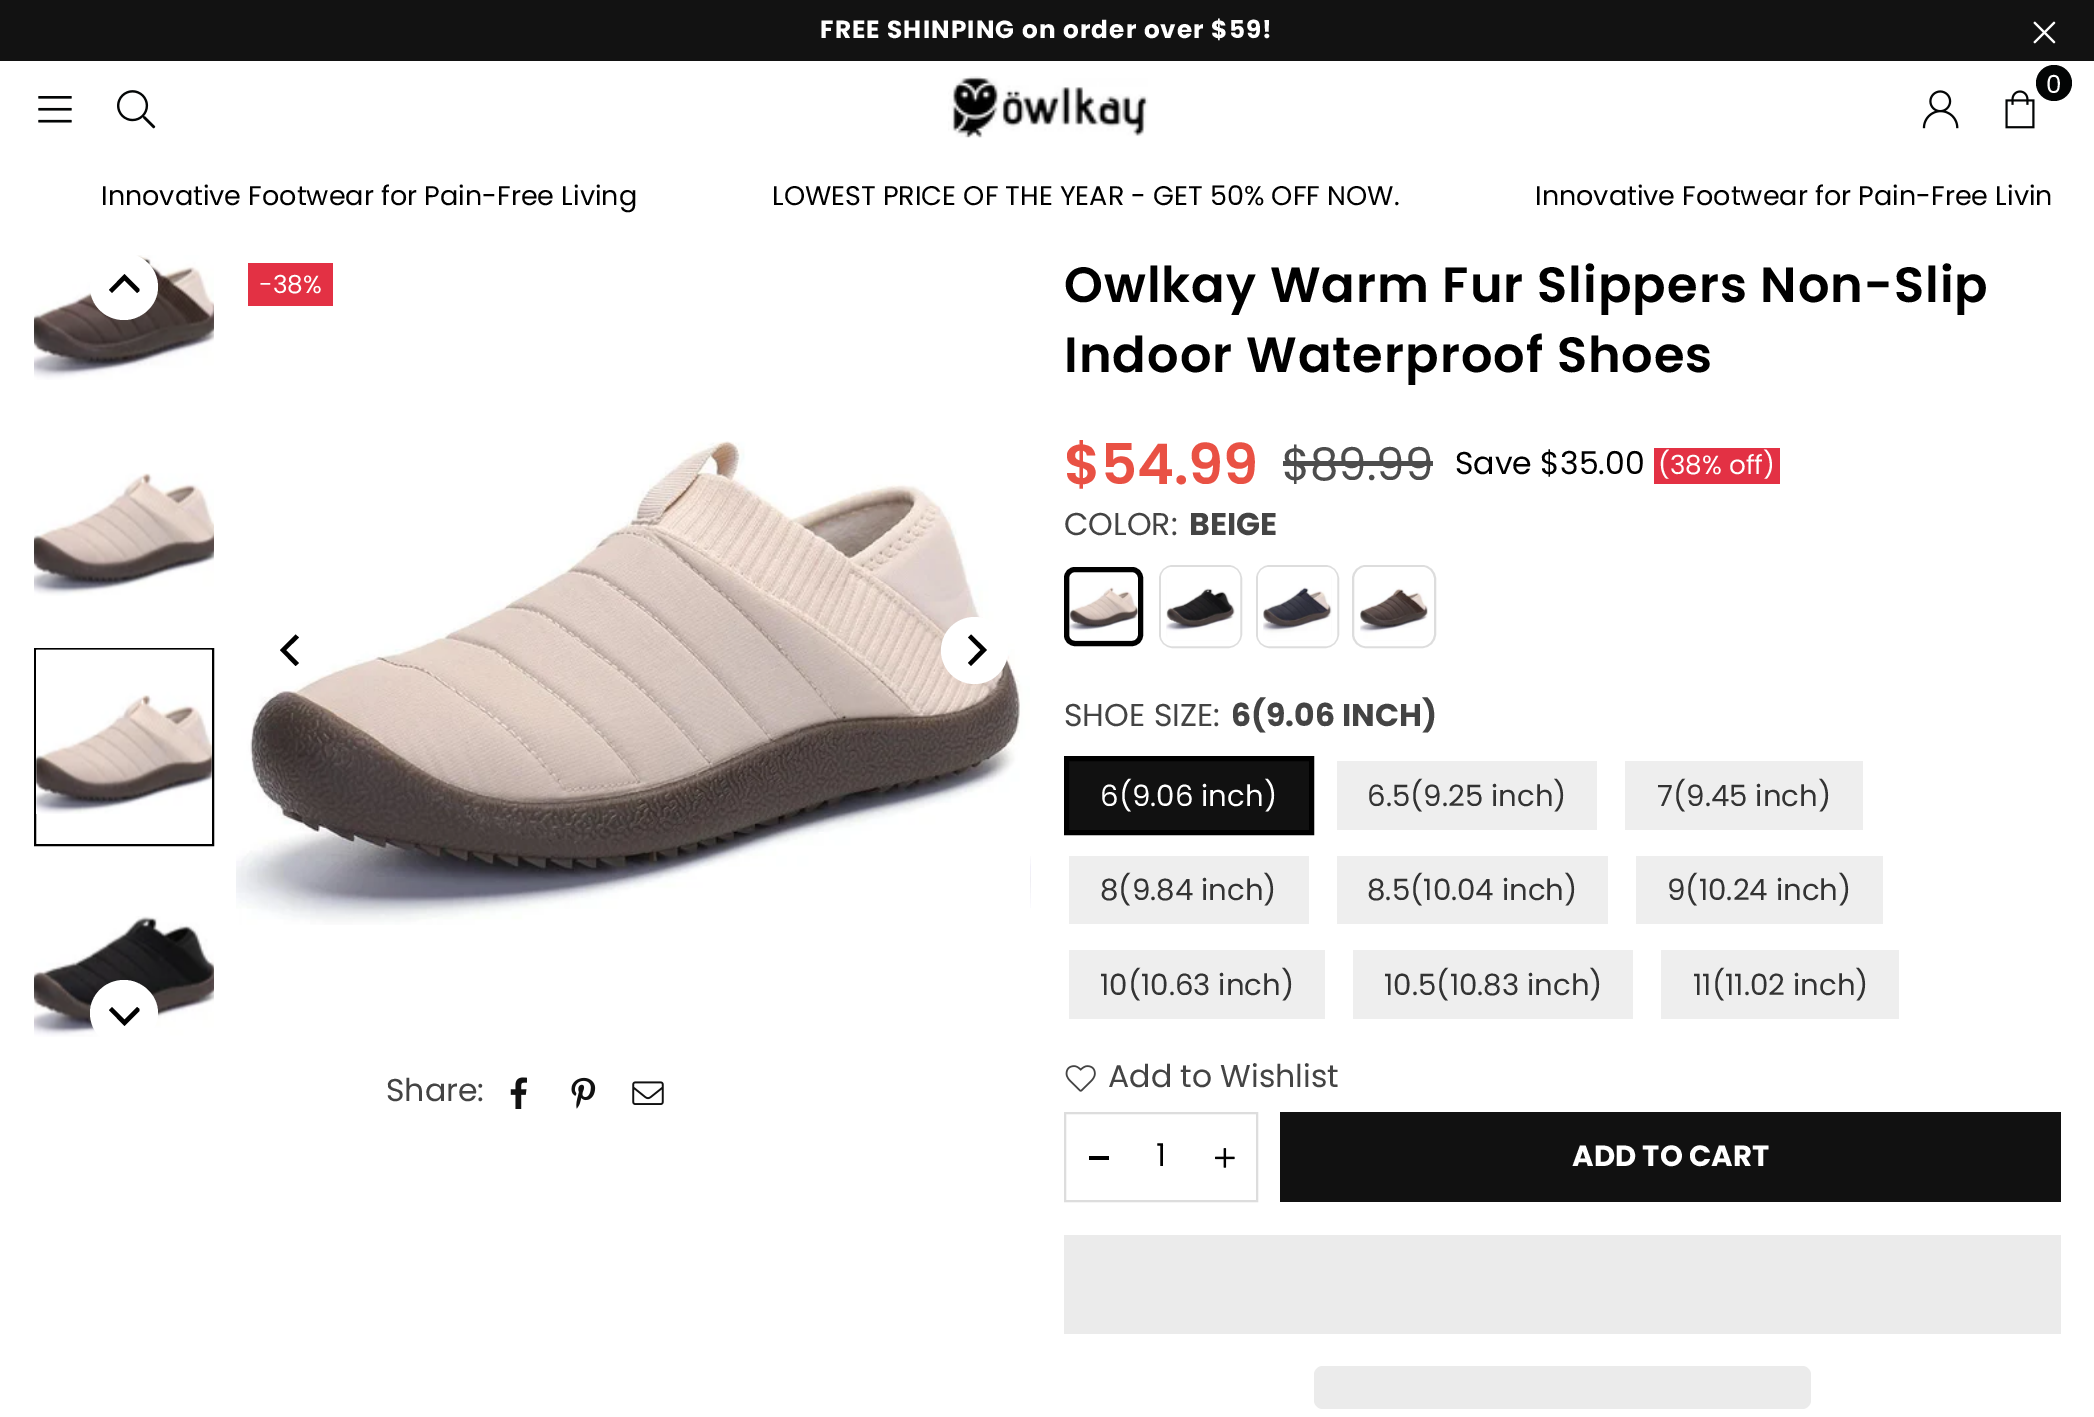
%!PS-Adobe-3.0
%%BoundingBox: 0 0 2094 1417
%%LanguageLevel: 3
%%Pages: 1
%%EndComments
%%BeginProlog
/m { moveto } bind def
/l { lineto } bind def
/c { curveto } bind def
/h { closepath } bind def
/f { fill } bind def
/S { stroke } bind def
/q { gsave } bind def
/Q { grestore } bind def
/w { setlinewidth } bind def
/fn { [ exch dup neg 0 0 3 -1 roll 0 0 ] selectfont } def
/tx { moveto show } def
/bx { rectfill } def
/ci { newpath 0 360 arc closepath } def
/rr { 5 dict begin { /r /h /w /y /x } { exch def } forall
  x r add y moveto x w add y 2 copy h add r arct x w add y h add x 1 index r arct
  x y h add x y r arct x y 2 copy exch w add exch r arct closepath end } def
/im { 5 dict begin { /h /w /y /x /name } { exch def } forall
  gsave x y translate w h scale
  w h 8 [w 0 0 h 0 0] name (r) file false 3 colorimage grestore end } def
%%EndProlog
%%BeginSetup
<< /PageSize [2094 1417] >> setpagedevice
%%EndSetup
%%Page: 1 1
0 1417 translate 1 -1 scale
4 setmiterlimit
1 setgray
0 0 2094 1417 bx
0.071 setgray
0 0 2094 61 bx
/Poppins-Bold 24.75 fn
1 setgray
820 38 m 1.1 0 (FREE SHINPING on order over $59!) ashow
(image0.raw) 2033 21 23 23 im
(image1.raw) 38 96 34 27 im
(image2.raw) 117 90 39 39 im
(image3.raw) 948 76 200 62 im
0.012 0.02 0.02 setrgbcolor
2054 83 18 ci f
/Poppins-Regular 24.75 fn
1 setgray
(0) 2046 93 tx
(image4.raw) 2005 90 30 39 im
(image5.raw) 1922 90 37 39 im
/Poppins-Regular 27 fn
0 setgray
(Innovative Footwear for Pain-Free Living) 101 205 tx
(LOWEST PRICE OF THE YEAR - GET 50% OFF NOW.) 772 205 tx
(Innovative Footwear for Pain-Free Livin) 1535 205 tx
(image6.raw) 34 255 180 125 im
1 setgray
158 287 m 158 305 142 320 124 320 c 105 320 90 305 90 287 c 90 268 105 253 124 253 c 142 253 158 268 158 287 c h f
0 setgray
124.5 274 m 139.5 289 l 139.5 291 l 137 293 l 124.5 280.5 l 112 293 l 109 290 l h f
(image7.raw) 34 473 180 123 im
2 w
35 649 178 196 rectstroke
(image8.raw) 36 649 176 165 im
(image9.raw) 34 916 180 121 im
1 setgray
158 1013 m 158 1032 142 1047 124 1047 c 105 1047 90 1032 90 1013 c 90 995 105 980 124 980 c 142 980 158 995 158 1013 c h f
0 setgray
124.5 1026 m 109 1010 l 112 1007 l 124.5 1019.5 l 137 1007 l 139.5 1009 l 139.5 1011 l h f
0.89 0.192 0.267 setrgbcolor
248 263 85 43 bx
/Poppins-Regular 24.75 fn
1 setgray
(-38%) 259 293 tx
(image10.raw) 236 441 794 484 im
(image11.raw) 1030 856 1 52 im
292.5 650.5 33.5 ci f
0 setgray
280 650 m 295.5 666 l 299 663 l 286 650 l 299 637.5 l 295.5 634.5 l h f
1 setgray
974.5 650.5 33.5 ci f
0 setgray
987 650 m 971 634.5 l 968 637.5 l 980.5 650 l 968 663 l 971 666 l h f
/Poppins-Regular 31.5 fn
0.267 setgray
(Share:) 386 1101 tx
(image12.raw) 510 1077 17 32 im
(image13.raw) 571 1077 25 32 im
(image14.raw) 632 1081 32 24 im
/Poppins-SemiBold 49.5 fn
0 setgray
1064 302 m 1 0 (Owlkay Warm Fur Slippers Non-Slip) ashow
1064 372 m 1 0 (Indoor Waterproof Shoes) ashow
/Poppins-SemiBold 56 fn
0.914 0.318 0.267 setrgbcolor
($54.99) 1064 484 tx
/Poppins-Regular 45 fn
0.302 setgray
($89.99) 1282 480 tx
1283 461 150 5 bx
/Poppins-Regular 31.5 fn
0 setgray
(Save $35.00) 1455 474 tx
0.89 0.192 0.267 setrgbcolor
1654 448 126 36 bx
/Poppins-Regular 26.25 fn
1 setgray
(\(38% off\)) 1658 474 tx
/Poppins-Regular 31.5 fn
0.267 setgray
(COLOR:) 1064 535 tx
/Poppins-Bold 31.5 fn
(BEIGE) 1189 535 tx
(image15.raw) 1069 572 69 69 im
0 setgray
5 w
1066.5 569.5 74 74 8.5 rr S
0.867 setgray
2 w
1160 566 81 81 13 rr S
(image16.raw) 1166 572 69 69 im
1 setgray
5 w
1163.5 569.5 74 74 8.5 rr S
0.867 setgray
2 w
1257 566 81 81 13 rr S
(image17.raw) 1263 572 69 69 im
1 setgray
5 w
1260.5 569.5 74 74 8.5 rr S
0.867 setgray
2 w
1353 566 82 81 13 rr S
(image18.raw) 1360 572 68 69 im
1 setgray
5 w
1357.5 569.5 73 74 8.5 rr S
/Poppins-Regular 31.5 fn
0.267 setgray
(SHOE SIZE:) 1064 726 tx
/Poppins-Bold 31.5 fn
(6\(9.06 INCH\)) 1231 726 tx
0.067 setgray
1066.5 758.5 m 1311.5 758.5 l 1311.5 832.5 l 1066.5 832.5 l h q f Q
0 setgray
S
/Poppins-Regular 29.25 fn
1 setgray
(6\(9.06 inch\)) 1100 806 tx
0.933 setgray
1337 761 260 69 bx
0.2 setgray
(6.5\(9.25 inch\)) 1367 806 tx
0.933 setgray
1625 761 238 69 bx
0.2 setgray
(7\(9.45 inch\)) 1657 806 tx
0.933 setgray
1069 856 240 68 bx
0.2 setgray
(8\(9.84 inch\)) 1100 900 tx
0.933 setgray
1337 856 271 68 bx
0.2 setgray
(8.5\(10.04 inch\)) 1367 900 tx
0.933 setgray
1636 856 247 68 bx
0.2 setgray
(9\(10.24 inch\)) 1667 900 tx
0.933 setgray
1069 950 256 69 bx
0.2 setgray
(10\(10.63 inch\)) 1100 995 tx
0.933 setgray
1353 950 280 69 bx
0.2 setgray
(10.5\(10.83 inch\)) 1384 995 tx
0.933 setgray
1661 950 238 69 bx
0.2 setgray
(11\(11.02 inch\)) 1693 995 tx
(image19.raw) 1065 1065 31 27 im
/Poppins-Regular 31.5 fn
0.267 setgray
(Add to Wishlist) 1108 1087 tx
0.867 setgray
2 w
1065 1113 192 88 rectstroke
0 setgray
1089 1156 20 4 bx
(1) 1156 1166 tx
(image20.raw) 1215 1148 20 20 im
0.067 setgray
1280 1112 781 90 bx
/Poppins-Bold 29.25 fn
1 setgray
(ADD TO CART) 1572 1166 tx
0.922 setgray
1064 1235 997 99 bx
1314 1366 497 43 9 rr f
showpage
%%EOF
